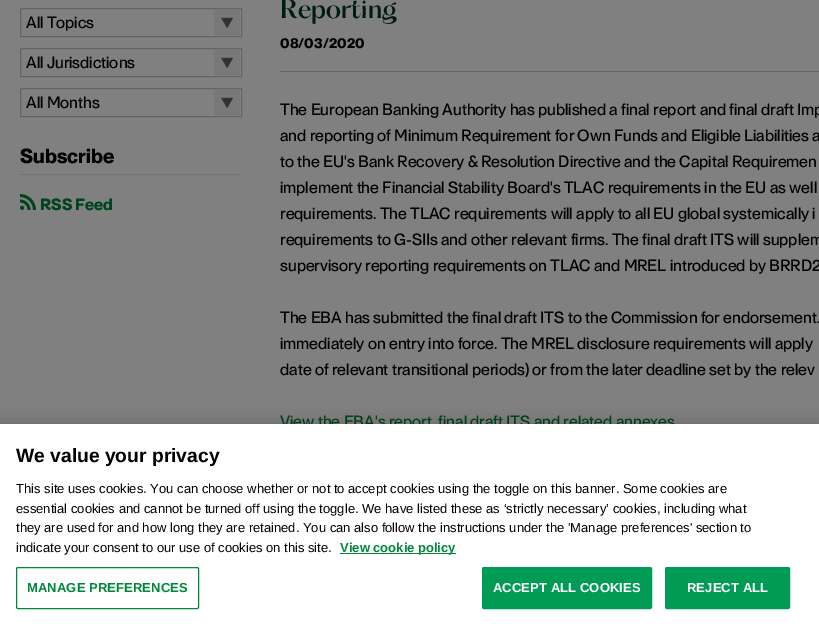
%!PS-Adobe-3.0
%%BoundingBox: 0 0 819 629
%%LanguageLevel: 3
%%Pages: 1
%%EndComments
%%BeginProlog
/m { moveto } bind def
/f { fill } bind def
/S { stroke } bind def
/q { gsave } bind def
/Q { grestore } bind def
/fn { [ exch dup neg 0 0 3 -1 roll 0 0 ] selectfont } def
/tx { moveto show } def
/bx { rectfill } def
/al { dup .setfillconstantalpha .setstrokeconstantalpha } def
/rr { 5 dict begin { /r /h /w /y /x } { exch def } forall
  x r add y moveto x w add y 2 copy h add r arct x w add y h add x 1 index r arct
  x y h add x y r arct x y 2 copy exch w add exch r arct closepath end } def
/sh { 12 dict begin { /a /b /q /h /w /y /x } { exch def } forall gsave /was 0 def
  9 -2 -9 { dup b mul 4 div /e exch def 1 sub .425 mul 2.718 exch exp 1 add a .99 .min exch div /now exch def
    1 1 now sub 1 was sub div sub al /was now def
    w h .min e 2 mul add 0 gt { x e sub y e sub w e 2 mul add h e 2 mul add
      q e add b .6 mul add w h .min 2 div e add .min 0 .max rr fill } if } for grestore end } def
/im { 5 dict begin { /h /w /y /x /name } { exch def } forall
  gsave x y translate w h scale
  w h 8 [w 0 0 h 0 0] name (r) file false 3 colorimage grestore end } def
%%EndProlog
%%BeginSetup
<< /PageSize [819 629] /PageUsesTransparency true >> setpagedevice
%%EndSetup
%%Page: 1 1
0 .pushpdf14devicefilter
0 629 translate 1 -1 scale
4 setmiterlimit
0.502 setgray
0 0 819 629 bx
0.4 0.396 0.396 setrgbcolor
20.5 8.5 221 28 rectstroke
(image0.raw) 214 10 26 25 im
/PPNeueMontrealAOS-Regular 16 fn
0 setgray
(All Topics) 26 28 tx
0.4 0.396 0.396 setrgbcolor
20.5 48.5 221 28 rectstroke
(image0.raw) 214 50 26 25 im
0 setgray
(All Jurisdictions) 26 68 tx
0.4 0.396 0.396 setrgbcolor
20.5 88.5 221 28 rectstroke
(image0.raw) 214 90 26 25 im
0 setgray
(All Months) 26 108 tx
0.451 setgray
20 174 220 1 bx
/PPNeueMontrealAOS-Bold 20 fn
0 setgray
(Subscribe) 20 163 tx
(image1.raw) 20 194 16 16 im
/PPNeueMontrealAOS-Bold 16 fn
0 0.267 0.118 setrgbcolor
(RSS Feed) 40 210 tx
0.4 setgray
280 71 539 1 bx
/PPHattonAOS-Regular 24 fn
0 0.102 0.086 setrgbcolor
(Reporting) 280 18 tx
/PPNeueMontrealAOS-Bold 14 fn
0 setgray
(08/03/2020) 280 48 tx
/PPNeueMontrealAOS-Regular 16 fn
(The European Banking Authority has published a final report and final draft Imp) 280 115 tx
(and reporting of Minimum Requirement for Own Funds and Eligible Liabilities a) 280 141 tx
(to the EU's Bank Recovery & Resolution Directive and the Capital Requiremen) 280 167 tx
(implement the Financial Stability Board's TLAC requirements in the EU as well) 280 193 tx
(requirements. The TLAC requirements will apply to all EU global systemically i) 280 219 tx
(requirements to G-SIIs and other relevant firms. The final draft ITS will supplem) 280 245 tx
(supervisory reporting requirements on TLAC and MREL introduced by BRRD2) 280 271 tx
(The EBA has submitted the final draft ITS to the Commission for endorsement.) 280 323 tx
(immediately on entry into force. The MREL disclosure requirements will apply) 280 349 tx
(date of relevant transitional periods\) or from the later deadline set by the relev) 280 375 tx
0 0.267 0.118 setrgbcolor
(View the EBA's report, final draft ITS and related annexes) 280 427 tx
0 setgray
0 424 819 205 0 9 0.2 sh
1 setgray
0 424 819 205 bx
/LiberationSans-Bold 19.25 fn
0 setgray
(We value your privacy) 16 462 tx
/LiberationSans-Regular 13 fn
(This site uses cookies. You can choose whether or not to accept cookies using the toggle on this banner. Some cookies are) 16 493 tx
(essential cookies and cannot be turned off using the toggle. We have listed these as ‘strictly necessary’ cookies, including what) 16 513 tx
(they are used for and how long they are retained. You can also follow the instructions under the 'Manage preferences' section to) 16 532 tx
(indicate your consent to our use of cookies on this site.) 16 552 tx
0 0.529 0.231 setrgbcolor
340 553 116 1 bx
/LiberationSans-Bold 13 fn
(View cookie policy) 340 552 tx
16.5 567.5 182 41 1.5 rr S
27 592 m 0.1 0 (MANAGE PREFERENCES) ashow
0 0.608 0.333 setrgbcolor
482.5 567.5 169 41 1.5 rr q f Q
S
1 setgray
493 592 m 0.1 0 (ACCEPT ALL COOKIES) ashow
0 0.608 0.333 setrgbcolor
665.5 567.5 124 41 1.5 rr q f Q
S
1 setgray
687 592 m 0.1 0 (REJECT ALL) ashow
.poppdf14devicefilter showpage
%%EOF
